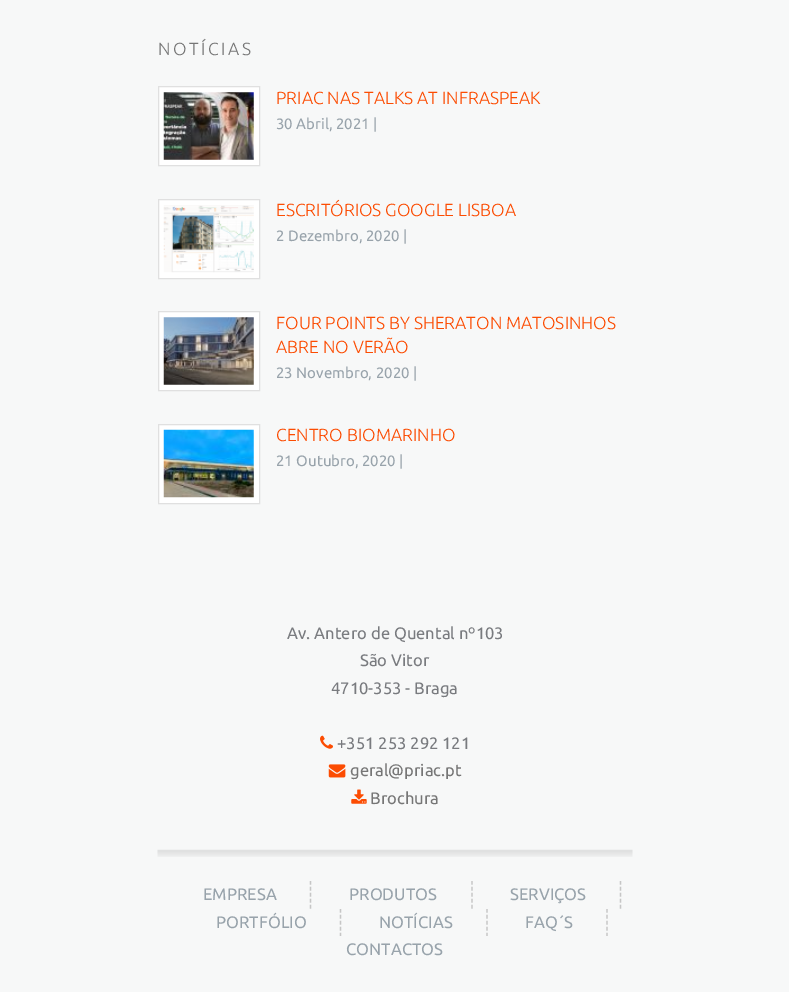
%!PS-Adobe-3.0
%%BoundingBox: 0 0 789 992
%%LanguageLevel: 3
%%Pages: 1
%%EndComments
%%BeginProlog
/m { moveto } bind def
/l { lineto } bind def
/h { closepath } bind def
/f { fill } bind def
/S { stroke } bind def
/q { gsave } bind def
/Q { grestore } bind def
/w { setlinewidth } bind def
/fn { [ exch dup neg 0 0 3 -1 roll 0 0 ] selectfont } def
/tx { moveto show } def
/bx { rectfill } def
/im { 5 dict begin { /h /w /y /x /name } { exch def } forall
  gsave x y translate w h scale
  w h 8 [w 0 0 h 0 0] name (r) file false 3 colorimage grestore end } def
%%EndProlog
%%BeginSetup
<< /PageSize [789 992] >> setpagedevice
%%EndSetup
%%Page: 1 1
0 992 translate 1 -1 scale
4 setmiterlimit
0.969 0.973 0.973 setrgbcolor
0 0 789 992 bx
/Ubuntu-Light 17.5 fn
0.463 setgray
158 55 m 2.5 0 (NOTÍCIAS) ashow
1 setgray
158.5 86.5 m 259.5 86.5 l 259.5 165.5 l 158.5 165.5 l h q f Q
0.878 setgray
S
(image0.raw) 163 92 91 68 im
0.988 0.298 0.008 setrgbcolor
(PRIAC NAS TALKS AT INFRASPEAK) 276 104 tx
/Ubuntu-Regular 15 fn
0.596 0.639 0.671 setrgbcolor
(30 Abril, 2021 |) 276 129 tx
1 setgray
158.5 199.5 m 259.5 199.5 l 259.5 278.5 l 158.5 278.5 l h q f Q
0.878 setgray
S
(image1.raw) 163 205 91 68 im
/Ubuntu-Light 17.5 fn
0.988 0.298 0.008 setrgbcolor
(ESCRITÓRIOS GOOGLE LISBOA) 276 216 tx
/Ubuntu-Regular 15 fn
0.596 0.639 0.671 setrgbcolor
(2 Dezembro, 2020 |) 276 241 tx
1 setgray
158.5 311.5 m 259.5 311.5 l 259.5 390.5 l 158.5 390.5 l h q f Q
0.878 setgray
S
(image2.raw) 163 317 91 68 im
/Ubuntu-Light 17.5 fn
0.988 0.298 0.008 setrgbcolor
(FOUR POINTS BY SHERATON MATOSINHOS) 276 329 tx
(ABRE NO VERÃO) 276 353 tx
/Ubuntu-Regular 15 fn
0.596 0.639 0.671 setrgbcolor
(23 Novembro, 2020 |) 276 378 tx
1 setgray
158.5 424.5 m 259.5 424.5 l 259.5 503.5 l 158.5 503.5 l h q f Q
0.878 setgray
S
(image3.raw) 163 429 91 69 im
/Ubuntu-Light 17.5 fn
0.988 0.298 0.008 setrgbcolor
(CENTRO BIOMARINHO) 276 441 tx
/Ubuntu-Regular 15 fn
0.596 0.639 0.671 setrgbcolor
(21 Outubro, 2020 |) 276 466 tx
/Ubuntu-Regular 16.6 fn
0.475 0.482 0.498 setrgbcolor
(Av. Antero de Quental nº103) 287 639 tx
(São Vitor) 360 666 tx
(4710-353 - Braga) 331 694 tx
(image4.raw) 320 735 13 14 im
(+351 253 292 121) 337 749 tx
(image5.raw) 328 764 18 14 im
0.463 setgray
(geral@priac.pt) 350 776 tx
(image6.raw) 351 789 16 15 im
(Brochura) 370 804 tx
(image7.raw) 157 849 476 8 im
0.776 setgray
1.2 w
[3.75 2.19] 0 setdash
310.5 881 m 310.5 909 l S
0.596 0.639 0.671 setrgbcolor
(EMPRESA) 203 900 tx
0.776 setgray
472 881 m 472 909 l S
0.596 0.639 0.671 setrgbcolor
(PRODUTOS) 349 900 tx
0.776 setgray
620.5 881 m 620.5 909 l S
0.596 0.639 0.671 setrgbcolor
(SERVIÇOS) 510 900 tx
0.776 setgray
340.5 909 m 340.5 936 l S
0.596 0.639 0.671 setrgbcolor
(PORTFÓLIO) 216 928 tx
0.776 setgray
487 909 m 487 936 l S
0.596 0.639 0.671 setrgbcolor
(NOTÍCIAS) 379 928 tx
0.776 setgray
607 909 m 607 936 l S
0.596 0.639 0.671 setrgbcolor
(FAQ´S) 525 928 tx
(CONTACTOS) 346 955 tx
showpage
%%EOF
